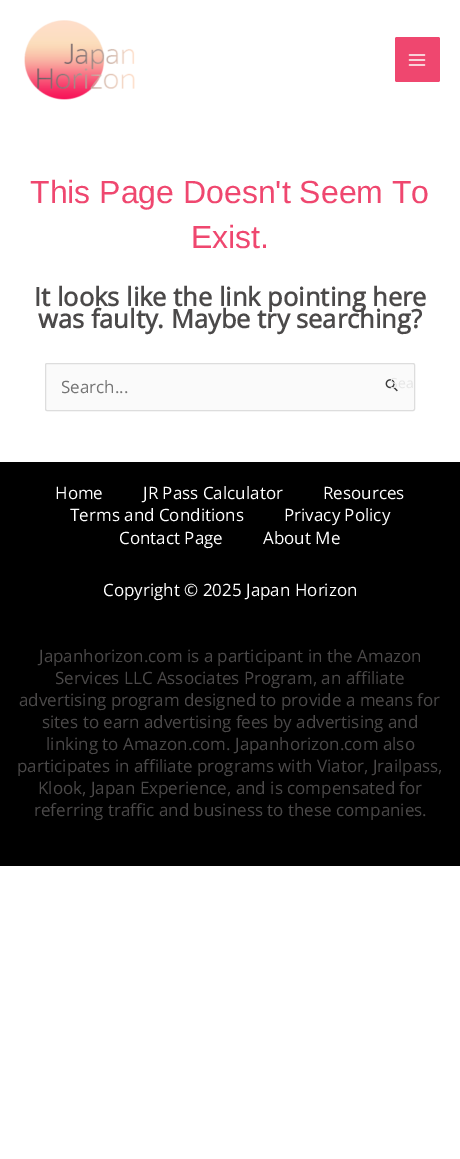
%!PS-Adobe-3.0
%%BoundingBox: 0 0 460 1159
%%LanguageLevel: 3
%%Pages: 1
%%EndComments
%%BeginProlog
/f { fill } bind def
/S { stroke } bind def
/q { gsave } bind def
/Q { grestore } bind def
/fn { [ exch dup neg 0 0 3 -1 roll 0 0 ] selectfont } def
/tx { moveto show } def
/bx { rectfill } def
/rr { 5 dict begin { /r /h /w /y /x } { exch def } forall
  x r add y moveto x w add y 2 copy h add r arct x w add y h add x 1 index r arct
  x y h add x y r arct x y 2 copy exch w add exch r arct closepath end } def
/im { 5 dict begin { /h /w /y /x /name } { exch def } forall
  gsave x y translate w h scale
  w h 8 [w 0 0 h 0 0] name (r) file false 3 colorimage grestore end } def
%%EndProlog
%%BeginSetup
<< /PageSize [460 1159] >> setpagedevice
%%EndSetup
%%Page: 1 1
0 1159 translate 1 -1 scale
4 setmiterlimit
1 setgray
0 0 460 1159 bx
(image0.raw) 24 20 111 80 im
0.937 0.278 0.435 setrgbcolor
395 37 45 45 2 rr f
(image1.raw) 408 54 18 12 im
/LiberationSans-Regular 32 fn
(This Page Doesn't Seem To) 30 203 tx
(Exist.) 191 248 tx
/OpenSans-Bold 25.5 fn
0.294 0.286 0.286 setrgbcolor
(It looks like the link pointing here) 34 306 tx
(was faulty. Maybe try searching?) 38 328 tx
0.98 setgray
45.5 363.5 369 47 1.5 rr q f Q
0.867 setgray
S
/OpenSans-Regular 17 fn
0.459 setgray
(Search...) 61 393 tx
(image2.raw) 385 379 13 13 im
/OpenSans-Regular 14 fn
0.902 setgray
(Sea) 390 388 tx
0 setgray
0 462 460 404 bx
/OpenSans-Regular 17 fn
1 setgray
(Home) 55 499 tx
(JR Pass Calculator) 143 499 tx
(Resources) 323 499 tx
(Terms and Conditions) 70 521 tx
(Privacy Policy) 284 521 tx
(Contact Page) 119 544 tx
(About Me) 263 544 tx
(Copyright © 2025 Japan Horizon) 103 596 tx
0.294 0.286 0.286 setrgbcolor
(Japanhorizon.com is a participant in the Amazon) 39 662 tx
(Services LLC Associates Program, an affiliate) 55 684 tx
(advertising program designed to provide a means for) 19 706 tx
(sites to earn advertising fees by advertising and) 42 728 tx
(linking to Amazon.com. Japanhorizon.com also) 46 750 tx
(participates in affiliate programs with Viator, Jrailpass,) 17 772 tx
(Klook, Japan Experience, and is compensated for) 38 794 tx
(referring traffic and business to these companies.) 34 816 tx
showpage
%%EOF
